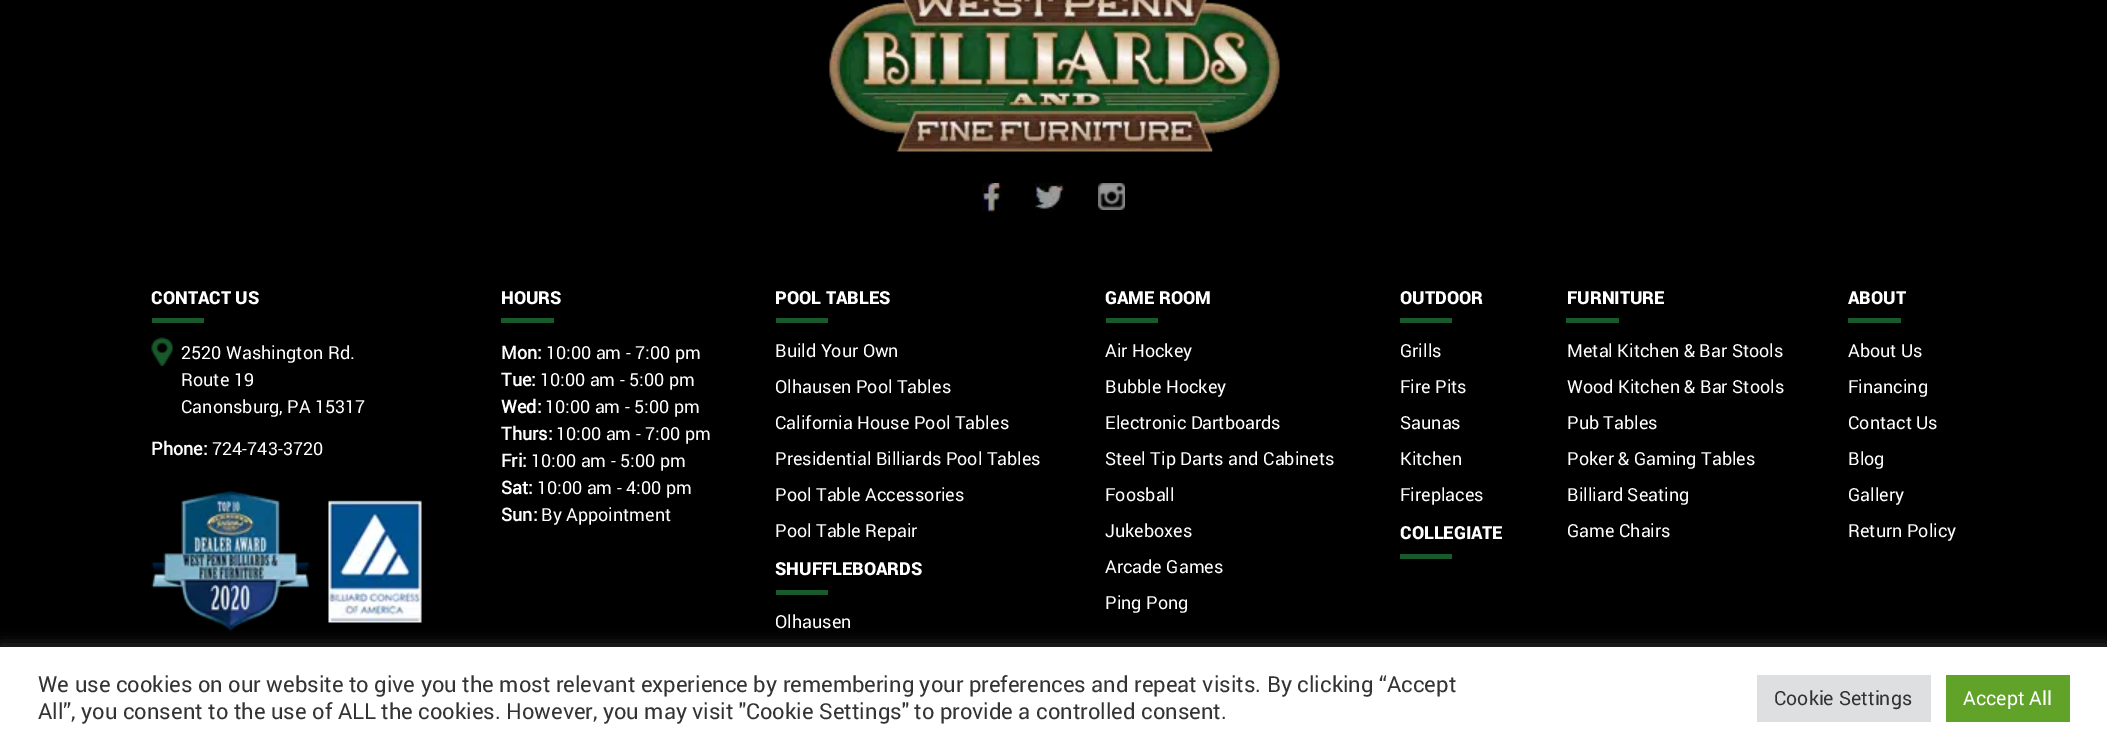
%!PS-Adobe-3.0
%%BoundingBox: 0 0 2107 750
%%LanguageLevel: 3
%%Pages: 1
%%EndComments
%%BeginProlog
/fn { [ exch dup neg 0 0 3 -1 roll 0 0 ] selectfont } def
/tx { moveto show } def
/bx { rectfill } def
/al { dup .setfillconstantalpha .setstrokeconstantalpha } def
/rr { 5 dict begin { /r /h /w /y /x } { exch def } forall
  x r add y moveto x w add y 2 copy h add r arct x w add y h add x 1 index r arct
  x y h add x y r arct x y 2 copy exch w add exch r arct closepath end } def
/sh { 12 dict begin { /a /b /q /h /w /y /x } { exch def } forall gsave /was 0 def
  9 -2 -9 { dup b mul 4 div /e exch def 1 sub .425 mul 2.718 exch exp 1 add a .99 .min exch div /now exch def
    1 1 now sub 1 was sub div sub al /was now def
    w h .min e 2 mul add 0 gt { x e sub y e sub w e 2 mul add h e 2 mul add
      q e add b .6 mul add w h .min 2 div e add .min 0 .max rr fill } if } for grestore end } def
/im { 5 dict begin { /h /w /y /x /name } { exch def } forall
  gsave x y translate w h scale
  w h 8 [w 0 0 h 0 0] name (r) file false 3 colorimage grestore end } def
%%EndProlog
%%BeginSetup
<< /PageSize [2107 750] /PageUsesTransparency true >> setpagedevice
%%EndSetup
%%Page: 1 1
0 .pushpdf14devicefilter
0 750 translate 1 -1 scale
4 setmiterlimit
0 setgray
0 0 2107 750 bx
(image0.raw) 829 0 451 152 im
(image1.raw) 982 183 19 29 im
(image2.raw) 1035 183 29 29 im
(image3.raw) 1098 183 27 27 im
/Roboto-Black 18 fn
1 setgray
(CONTACT US) 151 304 tx
0.094 0.353 0.173 setrgbcolor
152 318 52 5 bx
(image4.raw) 151 337 22 29 im
/Roboto-Regular 18 fn
1 setgray
(2520 Washington Rd.) 181 359 tx
(Route 19) 181 386 tx
(Canonsburg, PA 15317) 181 413 tx
/Roboto-Bold 18 fn
(Phone:) 151 455 tx
/Roboto-Regular 18 fn
(724-743-3720) 212 455 tx
(image5.raw) 151 490 158 142 im
(image6.raw) 328 500 94 123 im
/Roboto-Black 18 fn
(HOURS) 501 304 tx
0.094 0.353 0.173 setrgbcolor
501 318 53 5 bx
/Roboto-Bold 18 fn
1 setgray
(Mon:) 501 359 tx
/Roboto-Regular 18 fn
(10:00 am - 7:00 pm) 546 359 tx
/Roboto-Bold 18 fn
(Tue:) 501 386 tx
/Roboto-Regular 18 fn
(10:00 am - 5:00 pm) 540 386 tx
/Roboto-Bold 18 fn
(Wed:) 501 413 tx
/Roboto-Regular 18 fn
(10:00 am - 5:00 pm) 545 413 tx
/Roboto-Bold 18 fn
(Thurs:) 501 440 tx
/Roboto-Regular 18 fn
(10:00 am - 7:00 pm) 556 440 tx
/Roboto-Bold 18 fn
(Fri:) 501 467 tx
/Roboto-Regular 18 fn
(10:00 am - 5:00 pm) 531 467 tx
/Roboto-Bold 18 fn
(Sat:) 501 494 tx
/Roboto-Regular 18 fn
(10:00 am - 4:00 pm) 537 494 tx
/Roboto-Bold 18 fn
(Sun:) 501 521 tx
/Roboto-Regular 18 fn
(By Appointment) 541 521 tx
/Roboto-Black 18 fn
(POOL TABLES) 775 304 tx
0.094 0.353 0.173 setrgbcolor
776 318 52 5 bx
/Roboto-Regular 18 fn
1 setgray
(Build Your Own) 775 357 tx
(Olhausen Pool Tables) 775 393 tx
(California House Pool Tables) 775 429 tx
(Presidential Billiards Pool Tables) 775 465 tx
(Pool Table Accessories) 775 501 tx
(Pool Table Repair) 775 537 tx
/Roboto-Black 18 fn
(SHUFFLEBOARDS) 775 575 tx
0.094 0.353 0.173 setrgbcolor
776 590 52 5 bx
/Roboto-Regular 18 fn
1 setgray
(Olhausen) 775 628 tx
/Roboto-Black 18 fn
(GAME ROOM) 1105 304 tx
0.094 0.353 0.173 setrgbcolor
1106 318 52 5 bx
/Roboto-Regular 18 fn
1 setgray
(Air Hockey) 1105 357 tx
(Bubble Hockey) 1105 393 tx
(Electronic Dartboards) 1105 429 tx
(Steel Tip Darts and Cabinets) 1105 465 tx
(Foosball) 1105 501 tx
(Jukeboxes) 1105 537 tx
(Arcade Games) 1105 573 tx
(Ping Pong) 1105 609 tx
/Roboto-Black 18 fn
(OUTDOOR) 1400 304 tx
0.094 0.353 0.173 setrgbcolor
1400 318 52 5 bx
/Roboto-Regular 18 fn
1 setgray
(Grills) 1400 357 tx
(Fire Pits) 1400 393 tx
(Saunas) 1400 429 tx
(Kitchen) 1400 465 tx
(Fireplaces) 1400 501 tx
/Roboto-Black 18 fn
(COLLEGIATE) 1400 539 tx
0.094 0.353 0.173 setrgbcolor
1400 554 52 5 bx
1 setgray
(FURNITURE) 1567 304 tx
0.094 0.353 0.173 setrgbcolor
1566 318 53 5 bx
/Roboto-Regular 18 fn
1 setgray
(Metal Kitchen & Bar Stools) 1567 357 tx
(Wood Kitchen & Bar Stools) 1567 393 tx
(Pub Tables) 1567 429 tx
(Poker & Gaming Tables) 1567 465 tx
(Billiard Seating) 1567 501 tx
(Game Chairs) 1567 537 tx
/Roboto-Black 18 fn
(ABOUT) 1848 304 tx
0.094 0.353 0.173 setrgbcolor
1848 318 53 5 bx
/Roboto-Regular 18 fn
1 setgray
(About Us) 1848 357 tx
(Financing) 1848 393 tx
(Contact Us) 1848 429 tx
(Blog) 1848 465 tx
(Gallery) 1848 501 tx
(Return Policy) 1848 537 tx
0.675 0.671 0.671 setrgbcolor
0 645 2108 104 0 7.5 0.3 sh
1 setgray
0 647 2107 103 bx
/Roboto-Regular 22 fn
0.2 setgray
(We use cookies on our website to give you the most relevant experience by remembering your preferences and repeat visits. By clicking “Accept) 38 692 tx
(All”, you consent to the use of ALL the cookies. However, you may visit "Cookie Settings" to provide a controlled consent.) 38 719 tx
0.871 0.875 0.878 setrgbcolor
1757 675 174 47 bx
/Roboto-Regular 19.5 fn
0.2 setgray
(Cookie Settings) 1774 705 tx
0.38 0.635 0.161 setrgbcolor
1946 675 124 47 bx
1 setgray
(Accept All) 1963 705 tx
.poppdf14devicefilter showpage
%%EOF
